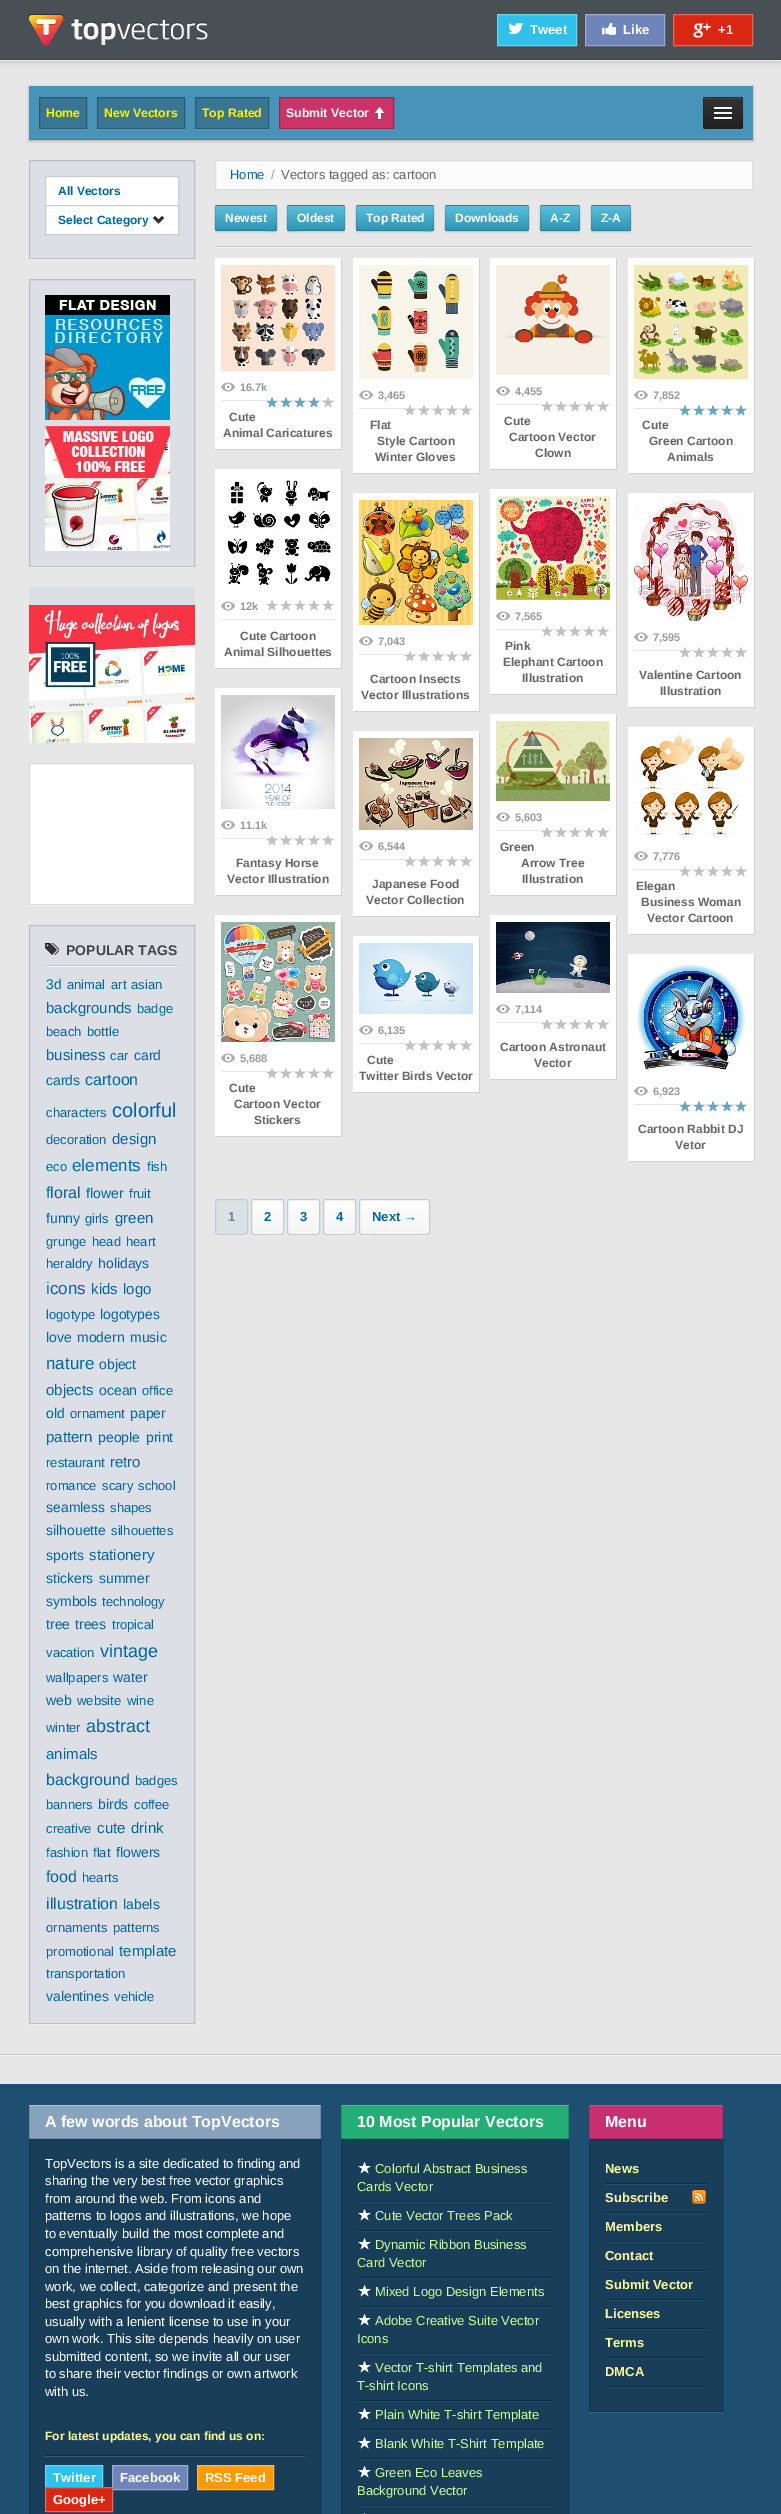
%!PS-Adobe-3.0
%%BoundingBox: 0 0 781 2514
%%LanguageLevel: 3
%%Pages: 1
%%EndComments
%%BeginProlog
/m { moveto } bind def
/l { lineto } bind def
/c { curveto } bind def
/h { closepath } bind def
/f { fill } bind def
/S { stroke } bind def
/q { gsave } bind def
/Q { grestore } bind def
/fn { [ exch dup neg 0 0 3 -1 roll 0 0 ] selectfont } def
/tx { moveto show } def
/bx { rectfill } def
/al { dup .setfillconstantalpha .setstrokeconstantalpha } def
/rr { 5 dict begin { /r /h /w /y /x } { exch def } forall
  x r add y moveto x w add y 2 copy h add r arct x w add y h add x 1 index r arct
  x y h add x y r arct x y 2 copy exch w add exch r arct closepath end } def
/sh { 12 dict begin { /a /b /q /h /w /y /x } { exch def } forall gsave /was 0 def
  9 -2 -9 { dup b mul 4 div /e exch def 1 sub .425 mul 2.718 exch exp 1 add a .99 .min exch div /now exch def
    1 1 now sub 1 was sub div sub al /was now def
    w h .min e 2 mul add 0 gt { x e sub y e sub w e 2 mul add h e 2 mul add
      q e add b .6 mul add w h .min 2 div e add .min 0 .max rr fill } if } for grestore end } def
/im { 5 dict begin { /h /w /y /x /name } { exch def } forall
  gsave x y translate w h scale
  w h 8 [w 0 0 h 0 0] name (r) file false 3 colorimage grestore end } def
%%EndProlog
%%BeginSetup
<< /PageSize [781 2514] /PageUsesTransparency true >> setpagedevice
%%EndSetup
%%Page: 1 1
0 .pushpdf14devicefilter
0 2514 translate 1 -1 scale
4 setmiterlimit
0.906 setgray
0 0 781 2514 bx
0 setgray
0 0 781 61 0 3.5 0.2 sh
0.282 0.314 0.329 setrgbcolor
0 0 781 59 bx
0.255 0.282 0.298 setrgbcolor
0 59 781 1 bx
0.933 setgray
0 60 781 1 bx
(image0.raw) 29 14 179 32 im
0.184 0.753 0.925 setrgbcolor
497.5 14.5 m 576.5 14.5 l 576.5 45.5 l 497.5 45.5 l h q f Q
0.427 0.827 0.949 setrgbcolor
S
(image1.raw) 508 23 15 11 im
/LiberationSans-Bold 13 fn
1 setgray
(Tweet) 530 34 tx
0.435 0.522 0.729 setrgbcolor
585.5 14.5 m 664.5 14.5 l 664.5 45.5 l 585.5 45.5 l h q f Q
0.604 0.667 0.812 setrgbcolor
S
(image2.raw) 602 23 14 12 im
1 setgray
(Like) 623 34 tx
0.855 0.153 0.075 setrgbcolor
673.5 14.5 m 752.5 14.5 l 752.5 45.5 l 673.5 45.5 l h q f Q
0.898 0.408 0.353 setrgbcolor
S
(image3.raw) 693 23 18 15 im
1 setgray
(+1) 718 34 tx
0 setgray
29 87 724 54 0 1.5 0.25 sh
0.278 0.58 0.722 setrgbcolor
29 86 724 53 bx
0.251 0.522 0.651 setrgbcolor
29 139 724 1 bx
0.459 0.686 0.792 setrgbcolor
39 129 48 1 bx
0.224 0.463 0.576 setrgbcolor
39.5 97.5 m 86.5 97.5 l 86.5 128.5 l 39.5 128.5 l h q f Q
0.169 0.349 0.431 setrgbcolor
S
/LiberationSans-Bold 12.25 fn
0.996 0.957 0 setrgbcolor
(Home) 46 117 tx
0.459 0.686 0.792 setrgbcolor
97 129 88 1 bx
0.224 0.463 0.576 setrgbcolor
97.5 97.5 m 184.5 97.5 l 184.5 128.5 l 97.5 128.5 l h q f Q
0.169 0.349 0.431 setrgbcolor
S
0.996 0.957 0 setrgbcolor
(New Vectors) 104 117 tx
0.459 0.686 0.792 setrgbcolor
195 129 74 1 bx
0.224 0.463 0.576 setrgbcolor
195.5 97.5 m 268.5 97.5 l 268.5 128.5 l 195.5 128.5 l h q f Q
0.169 0.349 0.431 setrgbcolor
S
0.996 0.957 0 setrgbcolor
(Top Rated) 202 117 tx
0.459 0.686 0.792 setrgbcolor
279 129 115 1 bx
0.8 0.2 0.4 setrgbcolor
279.5 97.5 m 393.5 97.5 l 393.5 128.5 l 279.5 128.5 l h q f Q
0.6 0.149 0.302 setrgbcolor
S
1 setgray
(Submit Vector) 286 117 tx
(image4.raw) 375 107 9 13 im
0.333 0.612 0.741 setrgbcolor
703 127 m 703 131 707 130 711 130 c 735 130 l 739 130 743 131 743 127 c 743 128 742 129 741 129 c 705 129 l 704 129 703 128 703 127 c h f
0.173 setgray
703 97 40 32 2 rr f
q
703 97 40 32 2 rr clip newpath
q 703 98 m 743 98 l 743 128 l 703 128 l h clip newpath
<< /ShadingType 2 /ColorSpace /DeviceRGB /Coords [723 98 723 128] /Extend [true true] /Function << /FunctionType 2 /Domain [0 1] /C0 [0.2 0.2 0.2] /C1 [0.133 0.133 0.133] /N 1 >> >> shfill Q
Q
0.278 setgray
705 99 m 741 99 l 742 99 742 99 742 100 c 742 96.5 738.5 98 735 98 c 711 98 l 707.5 98 704 96.5 704 100 c 704 99 704 99 705 99 c h f
0.25 al
0 setgray
742 128 m 741 128.5 l 705 128.5 l 704 128 l S
0.1 al
704 128 m 702.5 126.5 703.5 124.5 703.5 122.5 c 703.5 103.5 l 703.5 96 703 97.5 711 97.5 c 735 97.5 l 743 97.5 742.5 96 742.5 103.5 c 742.5 122.5 l 742.5 124.5 743.5 126.5 742 128 c S
1 al
0.129 setgray
714 109 18 1 bx
0.961 setgray
714 107 18 2 bx
0.125 setgray
714 114 18 1 bx
0.961 setgray
714 112 18 2 bx
0.114 setgray
714 119 18 1 bx
0.961 setgray
714 117 18 2 bx
1 setgray
29 259 166 1 bx
0.867 0.875 0.906 setrgbcolor
29.5 160.5 m 194.5 160.5 l 194.5 258.5 l 29.5 258.5 l h q f Q
0.737 0.745 0.769 setrgbcolor
S
1 setgray
45.5 176.5 m 178.5 176.5 l 178.5 205.5 l 45.5 205.5 l h q f Q
0.8 setgray
S
/LiberationSans-Bold 12 fn
0 0.4 0.6 setrgbcolor
(All Vectors) 58 195 tx
1 setgray
45.5 205.5 m 178.5 205.5 l 178.5 234.5 l 45.5 234.5 l h q f Q
0.8 setgray
S
0 0.4 0.6 setrgbcolor
(Select Category) 58 224 tx
(image5.raw) 152 216 12 8 im
1 setgray
29 567 166 1 bx
0.867 0.875 0.906 setrgbcolor
29.5 279.5 m 194.5 279.5 l 194.5 566.5 l 29.5 566.5 l h q f Q
0.737 0.745 0.769 setrgbcolor
S
(image6.raw) 45 295 125 125 im
(image7.raw) 45 426 125 125 im
0.867 0.875 0.906 setrgbcolor
29 587 166 18 bx
(image8.raw) 29 605 166 138 im
1 setgray
29 905 166 1 bx
29.5 763.5 m 194.5 763.5 l 194.5 904.5 l 29.5 904.5 l h q f Q
0.851 setgray
S
1 setgray
29 2024 166 1 bx
0.867 0.875 0.906 setrgbcolor
29.5 925.5 m 194.5 925.5 l 194.5 2023.5 l 29.5 2023.5 l h q f Q
0.737 0.745 0.769 setrgbcolor
S
(image9.raw) 45 943 14 12 im
/LiberationSans-Bold 14 fn
0.267 setgray
(POPULAR TAGS) 66 955 tx
0.773 setgray
45 965 134 1 bx
0.969 setgray
45 966 134 1 bx
/LiberationSans-Regular 14 fn
0 0.4 0.6 setrgbcolor
(3d) 46 989 tx
/LiberationSans-Regular 13 fn
(animal) 67 989 tx
(art) 111 989 tx
(asian) 131 989 tx
/LiberationSans-Regular 15 fn
(backgrounds) 46 1013 tx
/LiberationSans-Regular 13 fn
(badge) 137 1013 tx
(beach) 46 1036 tx
(bottle) 87 1036 tx
/LiberationSans-Regular 15 fn
(business) 46 1060 tx
/LiberationSans-Regular 13 fn
(car) 110 1060 tx
/LiberationSans-Regular 14 fn
(card) 134 1060 tx
(cards) 46 1085 tx
/LiberationSans-Regular 16 fn
(cartoon) 85 1085 tx
/LiberationSans-Regular 13 fn
(characters) 46 1117 tx
/LiberationSans-Regular 20 fn
(colorful) 112 1117 tx
/LiberationSans-Regular 13 fn
(decoration) 46 1144 tx
/LiberationSans-Regular 15 fn
(design) 112 1144 tx
/LiberationSans-Regular 13 fn
(eco) 46 1171 tx
/LiberationSans-Regular 17 fn
(elements) 72 1171 tx
/LiberationSans-Regular 13 fn
(fish) 147 1171 tx
/LiberationSans-Regular 16 fn
(floral) 46 1198 tx
/LiberationSans-Regular 14 fn
(flower) 86 1198 tx
/LiberationSans-Regular 13 fn
(fruit) 129 1198 tx
/LiberationSans-Regular 14 fn
(funny) 46 1223 tx
/LiberationSans-Regular 13 fn
(girls) 85 1223 tx
/LiberationSans-Regular 15 fn
(green) 115 1223 tx
/LiberationSans-Regular 13 fn
(grunge) 46 1246 tx
(head) 92 1246 tx
(heart) 126 1246 tx
(heraldry) 46 1268 tx
/LiberationSans-Regular 14 fn
(holidays) 98 1268 tx
/LiberationSans-Regular 17 fn
(icons) 46 1294 tx
/LiberationSans-Regular 15 fn
(kids) 91 1294 tx
(logo) 123 1294 tx
/LiberationSans-Regular 13 fn
(logotype) 46 1319 tx
/LiberationSans-Regular 14 fn
(logotypes) 100 1319 tx
(love) 46 1342 tx
(modern) 77 1342 tx
(music) 130 1342 tx
/LiberationSans-Regular 17 fn
(nature) 46 1369 tx
/LiberationSans-Regular 14 fn
(object) 99 1369 tx
/LiberationSans-Regular 15 fn
(objects) 46 1395 tx
/LiberationSans-Regular 14 fn
(ocean) 99 1395 tx
/LiberationSans-Regular 13 fn
(office) 142 1395 tx
/LiberationSans-Regular 14 fn
(old) 46 1418 tx
/LiberationSans-Regular 13 fn
(ornament) 70 1418 tx
/LiberationSans-Regular 14 fn
(paper) 130 1418 tx
/LiberationSans-Regular 15 fn
(pattern) 46 1442 tx
/LiberationSans-Regular 14 fn
(people) 98 1442 tx
(print) 146 1442 tx
/LiberationSans-Regular 13 fn
(restaurant) 46 1467 tx
/LiberationSans-Regular 15 fn
(retro) 110 1467 tx
/LiberationSans-Regular 13 fn
(romance) 46 1490 tx
(scary) 102 1490 tx
(school) 138 1490 tx
/LiberationSans-Regular 14 fn
(seamless) 46 1512 tx
/LiberationSans-Regular 13 fn
(shapes) 110 1512 tx
/LiberationSans-Regular 14 fn
(silhouette) 46 1535 tx
/LiberationSans-Regular 13 fn
(silhouettes) 111 1535 tx
/LiberationSans-Regular 14 fn
(sports) 46 1560 tx
/LiberationSans-Regular 15 fn
(stationery) 89 1560 tx
/LiberationSans-Regular 14 fn
(stickers) 46 1583 tx
(summer) 99 1583 tx
(symbols) 46 1606 tx
/LiberationSans-Regular 13 fn
(technology) 102 1606 tx
/LiberationSans-Regular 14 fn
(tree) 46 1629 tx
(trees) 75 1629 tx
/LiberationSans-Regular 13 fn
(tropical) 112 1629 tx
(vacation) 46 1657 tx
/LiberationSans-Regular 18 fn
(vintage) 100 1657 tx
/LiberationSans-Regular 13 fn
(wallpapers) 46 1682 tx
/LiberationSans-Regular 14 fn
(water) 113 1682 tx
(web) 46 1705 tx
/LiberationSans-Regular 13 fn
(website) 77 1705 tx
(wine) 127 1705 tx
(winter) 46 1732 tx
/LiberationSans-Regular 18 fn
(abstract) 86 1732 tx
/LiberationSans-Regular 15 fn
(animals) 46 1759 tx
/LiberationSans-Regular 16 fn
(background) 46 1785 tx
/LiberationSans-Regular 13 fn
(badges) 135 1785 tx
(banners) 46 1809 tx
/LiberationSans-Regular 14 fn
(birds) 98 1809 tx
/LiberationSans-Regular 13 fn
(coffee) 134 1809 tx
(creative) 46 1833 tx
/LiberationSans-Regular 15 fn
(cute) 97 1833 tx
(drink) 131 1833 tx
/LiberationSans-Regular 13 fn
(fashion) 46 1857 tx
(flat) 93 1857 tx
/LiberationSans-Regular 14 fn
(flowers) 116 1857 tx
/LiberationSans-Regular 16 fn
(food) 46 1882 tx
/LiberationSans-Regular 13 fn
(hearts) 82 1882 tx
/LiberationSans-Regular 16 fn
(illustration) 46 1909 tx
/LiberationSans-Regular 14 fn
(labels) 123 1909 tx
/LiberationSans-Regular 13 fn
(ornaments) 46 1932 tx
(patterns) 113 1932 tx
(promotional) 46 1956 tx
/LiberationSans-Regular 15 fn
(template) 119 1956 tx
/LiberationSans-Regular 13 fn
(transportation) 46 1978 tx
/LiberationSans-Regular 14 fn
(valentines) 46 2001 tx
/LiberationSans-Regular 13 fn
(vehicle) 114 2001 tx
0.984 setgray
215.5 160.5 m 752.5 160.5 l 752.5 189.5 l 215.5 189.5 l h q f Q
0.867 setgray
S
0 0.4 0.6 setrgbcolor
(Home) 230 179 tx
0.6 setgray
(/) 271 179 tx
0.4 setgray
(Vectors tagged as: cartoon) 281 179 tx
0 setgray
215 206 62 26 2 1 0.15 sh
0.184 0.588 0.706 setrgbcolor
215 205 62 26 2 rr f
q
215 205 62 26 2 rr clip newpath
q 215 206 m 277 206 l 277 230 l 215 230 l h clip newpath
<< /ShadingType 2 /ColorSpace /DeviceRGB /Coords [246 206 246 230] /Extend [true true] /Function << /FunctionType 2 /Domain [0 1] /C0 [0.349 0.749 0.867] /C1 [0.184 0.588 0.706] /N 1 >> >> shfill Q
Q
0.15 al
0 setgray
276 230 m 273.5 232.5 269 230.5 265.5 230.5 c 216 230 l S
0.1 al
216 230 m 214.5 228.5 215.5 220 215.5 218 c 215.5 203 212.5 205.5 226.5 205.5 c 265.5 205.5 l 279.5 205.5 276.5 203 276.5 218 c 276.5 220 277.5 228.5 276 230 c S
/LiberationSans-Bold 12 fn
1 al
1 setgray
(Newest) 225 222 tx
0 setgray
287 206 58 26 2 1 0.15 sh
0.184 0.588 0.706 setrgbcolor
287 205 58 26 2 rr f
q
287 205 58 26 2 rr clip newpath
q 287 206 m 345 206 l 345 230 l 287 230 l h clip newpath
<< /ShadingType 2 /ColorSpace /DeviceRGB /Coords [316 206 316 230] /Extend [true true] /Function << /FunctionType 2 /Domain [0 1] /C0 [0.349 0.749 0.867] /C1 [0.184 0.588 0.706] /N 1 >> >> shfill Q
Q
0.15 al
0 setgray
344 230 m 298 230.5 l 294.5 230.5 290.5 232.5 288 230 c S
0.1 al
288 230 m 286.5 228.5 287.5 220 287.5 218 c 287.5 203.5 284.5 205.5 298 205.5 c 334 205.5 l 347.5 205.5 344.5 203.5 344.5 218 c 344.5 220 345.5 228.5 344 230 c S
1 al
1 setgray
(Oldest) 297 222 tx
0 setgray
356 206 78 26 2 1 0.15 sh
0.184 0.588 0.706 setrgbcolor
356 205 78 26 2 rr f
q
356 205 78 26 2 rr clip newpath
q 356 206 m 434 206 l 434 230 l 356 230 l h clip newpath
<< /ShadingType 2 /ColorSpace /DeviceRGB /Coords [395 206 395 230] /Extend [true true] /Function << /FunctionType 2 /Domain [0 1] /C0 [0.349 0.749 0.867] /C1 [0.184 0.588 0.706] /N 1 >> >> shfill Q
Q
0.15 al
0 setgray
433 230 m 430 233 424 230.5 419.5 230.5 c 413 230.5 358 231 357 230 c S
0.1 al
357 230 m 355.5 228.5 356.5 220 356.5 218 c 356.5 202 353.5 205.5 370.5 205.5 c 432 205.5 l 434.5 205.5 433.5 210 433.5 210.5 c 433.5 221.5 l 433.5 223.5 434.5 228.5 433 230 c S
1 al
1 setgray
(Top Rated) 366 222 tx
0 setgray
445 206 84 26 2 1 0.15 sh
0.184 0.588 0.706 setrgbcolor
445 205 84 26 2 rr f
q
445 205 84 26 2 rr clip newpath
q 445 206 m 529 206 l 529 230 l 445 230 l h clip newpath
<< /ShadingType 2 /ColorSpace /DeviceRGB /Coords [487 206 487 230] /Extend [true true] /Function << /FunctionType 2 /Domain [0 1] /C0 [0.349 0.749 0.867] /C1 [0.184 0.588 0.706] /N 1 >> >> shfill Q
Q
0.15 al
0 setgray
528 230 m 527 230.5 l 447 230.5 l 446 230 l S
0.1 al
446 230 m 444.5 228.5 445.5 223.5 445.5 221.5 c 445.5 210.5 l 445.5 210 444.5 205.5 447 205.5 c 527 205.5 l 529.5 205.5 528.5 210 528.5 210.5 c 528.5 221.5 l 528.5 223.5 529.5 228.5 528 230 c S
1 al
1 setgray
(Downloads) 455 222 tx
0 setgray
540 206 40 26 2 1 0.15 sh
0.184 0.588 0.706 setrgbcolor
540 205 40 26 2 rr f
q
540 205 40 26 2 rr clip newpath
q 540 206 m 580 206 l 580 230 l 540 230 l h clip newpath
<< /ShadingType 2 /ColorSpace /DeviceRGB /Coords [560 206 560 230] /Extend [true true] /Function << /FunctionType 2 /Domain [0 1] /C0 [0.349 0.749 0.867] /C1 [0.184 0.588 0.706] /N 1 >> >> shfill Q
Q
0.15 al
0 setgray
579 230 m 578 230.5 l 542 230.5 l 541 230 l S
0.1 al
541 230 m 540 229 540.5 225.5 540.5 225.5 c 540.5 210.5 l 540.5 204 540.5 205.5 548 205.5 c 572 205.5 l 579.5 205.5 579.5 204 579.5 210.5 c 579.5 225.5 l 579.5 225.5 580 229 579 230 c S
1 al
1 setgray
(A-Z) 550 222 tx
0 setgray
591 206 40 26 2 1 0.15 sh
0.184 0.588 0.706 setrgbcolor
591 205 40 26 2 rr f
q
591 205 40 26 2 rr clip newpath
q 591 206 m 631 206 l 631 230 l 591 230 l h clip newpath
<< /ShadingType 2 /ColorSpace /DeviceRGB /Coords [611 206 611 230] /Extend [true true] /Function << /FunctionType 2 /Domain [0 1] /C0 [0.349 0.749 0.867] /C1 [0.184 0.588 0.706] /N 1 >> >> shfill Q
Q
0.15 al
0 setgray
630 230 m 629 230.5 l 593 230.5 l 592 230 l S
0.1 al
592 230 m 591 229 591.5 225.5 591.5 225.5 c 591.5 210.5 l 591.5 204 591.5 205.5 599 205.5 c 623 205.5 l 630.5 205.5 630.5 204 630.5 210.5 c 630.5 225.5 l 630.5 225.5 631 229 630 230 c S
1 al
1 setgray
(Z-A) 601 222 tx
0.773 setgray
215 246 538 1 bx
0.961 setgray
215 247 538 1 bx
0.816 setgray
216 449 m 216 450 l 342 450 l 342 259 l 341 259 l 341 449 l h f
1 setgray
215 258 126 191 bx
(image10.raw) 221 265 114 106 im
(image11.raw) 221 382 14 10 im
/LiberationSans-Bold 11 fn
0.6 setgray
(16.7k) 240 391 tx
0.902 setgray
221 400 114 1 bx
(image12.raw) 266 397 12 11 im
(image12.raw) 280 397 12 11 im
(image12.raw) 294 397 12 11 im
(image12.raw) 308 397 12 11 im
(image13.raw) 322 397 12 11 im
/LiberationSans-Bold 12 fn
0.4 setgray
(Cute) 229 421 tx
(Animal Caricatures) 223 437 tx
0.816 setgray
354 473 m 354 474 l 480 474 l 480 259 l 479 259 l 479 473 l h f
1 setgray
353 258 126 215 bx
(image14.raw) 359 265 114 114 im
(image11.raw) 359 390 14 10 im
/LiberationSans-Bold 11 fn
0.6 setgray
(3,465) 378 399 tx
0.902 setgray
359 408 114 1 bx
(image13.raw) 404 405 12 11 im
(image13.raw) 418 405 12 11 im
(image13.raw) 432 405 12 11 im
(image13.raw) 446 405 12 11 im
(image13.raw) 460 405 12 11 im
/LiberationSans-Bold 12 fn
0.4 setgray
(Flat) 370 429 tx
(Style Cartoon) 377 445 tx
(Winter Gloves) 375 461 tx
0.816 setgray
491 469 m 491 470 l 617 470 l 617 259 l 616 259 l 616 469 l h f
1 setgray
490 258 126 211 bx
(image15.raw) 496 265 114 110 im
(image11.raw) 496 386 14 10 im
/LiberationSans-Bold 11 fn
0.6 setgray
(4,455) 515 395 tx
0.902 setgray
496 404 114 1 bx
(image13.raw) 541 401 12 11 im
(image13.raw) 555 401 12 11 im
(image13.raw) 569 401 12 11 im
(image13.raw) 583 401 12 11 im
(image13.raw) 597 401 12 11 im
/LiberationSans-Bold 12 fn
0.4 setgray
(Cute) 504 425 tx
(Cartoon Vector) 509 441 tx
(Clown) 535 457 tx
0.816 setgray
629 473 m 629 474 l 755 474 l 755 259 l 754 259 l 754 473 l h f
1 setgray
628 258 126 215 bx
(image16.raw) 634 265 114 114 im
(image11.raw) 634 390 14 10 im
/LiberationSans-Bold 11 fn
0.6 setgray
(7,852) 653 399 tx
0.902 setgray
634 408 114 1 bx
(image12.raw) 679 405 12 11 im
(image12.raw) 693 405 12 11 im
(image12.raw) 707 405 12 11 im
(image12.raw) 721 405 12 11 im
(image12.raw) 735 405 12 11 im
/LiberationSans-Bold 12 fn
0.4 setgray
(Cute) 642 429 tx
(Green Cartoon) 649 445 tx
(Animals) 667 461 tx
0.816 setgray
216 668 m 216 669 l 342 669 l 342 470 l 341 470 l 341 668 l h f
1 setgray
215 469 126 199 bx
(image17.raw) 226 480 105 105 im
(image11.raw) 221 601 14 10 im
/LiberationSans-Bold 11 fn
0.6 setgray
(12k) 240 610 tx
(image18.raw) 266 600 12 11 im
(image18.raw) 280 600 12 11 im
(image18.raw) 294 600 12 11 im
(image18.raw) 308 600 12 11 im
(image18.raw) 322 600 12 11 im
0.902 setgray
221 619 114 1 bx
/LiberationSans-Bold 12 fn
0.4 setgray
(Cute Cartoon) 240 640 tx
(Animal Silhouettes) 224 656 tx
0.816 setgray
354 711 m 354 712 l 480 712 l 480 494 l 479 494 l 479 711 l h f
1 setgray
353 493 126 218 bx
(image19.raw) 359 500 114 125 im
(image11.raw) 359 636 14 10 im
/LiberationSans-Bold 11 fn
0.6 setgray
(7,043) 378 645 tx
0.902 setgray
359 654 114 1 bx
(image13.raw) 404 651 12 11 im
(image13.raw) 418 651 12 11 im
(image13.raw) 432 651 12 11 im
(image13.raw) 446 651 12 11 im
(image13.raw) 460 651 12 11 im
/LiberationSans-Bold 12 fn
0.4 setgray
(Cartoon Insects) 370 683 tx
(Vector Illustrations) 361 699 tx
0.816 setgray
491 694 m 491 695 l 617 695 l 617 490 l 616 490 l 616 694 l h f
1 setgray
490 489 126 205 bx
(image20.raw) 496 496 114 104 im
(image11.raw) 496 611 14 10 im
/LiberationSans-Bold 11 fn
0.6 setgray
(7,565) 515 620 tx
0.902 setgray
496 629 114 1 bx
(image13.raw) 541 626 12 11 im
(image13.raw) 555 626 12 11 im
(image13.raw) 569 626 12 11 im
(image13.raw) 583 626 12 11 im
(image13.raw) 597 626 12 11 im
/LiberationSans-Bold 12 fn
0.4 setgray
(Pink) 505 650 tx
(Elephant Cartoon) 503 666 tx
(Illustration) 522 682 tx
0.816 setgray
629 707 m 629 708 l 755 708 l 755 494 l 754 494 l 754 707 l h f
1 setgray
628 493 126 214 bx
(image21.raw) 634 500 114 121 im
(image11.raw) 634 632 14 10 im
/LiberationSans-Bold 11 fn
0.6 setgray
(7,595) 653 641 tx
0.902 setgray
634 650 114 1 bx
(image13.raw) 679 647 12 11 im
(image13.raw) 693 647 12 11 im
(image13.raw) 707 647 12 11 im
(image13.raw) 721 647 12 11 im
(image13.raw) 735 647 12 11 im
/LiberationSans-Bold 12 fn
0.4 setgray
(Valentine Cartoon) 639 679 tx
(Illustration) 660 695 tx
0.816 setgray
216 895 m 216 896 l 342 896 l 342 689 l 341 689 l 341 895 l h f
1 setgray
215 688 126 207 bx
(image22.raw) 221 695 114 114 im
(image11.raw) 221 820 14 10 im
/LiberationSans-Bold 11 fn
0.6 setgray
(11.1k) 240 829 tx
0.902 setgray
221 838 114 1 bx
(image13.raw) 266 835 12 11 im
(image13.raw) 280 835 12 11 im
(image13.raw) 294 835 12 11 im
(image13.raw) 308 835 12 11 im
(image13.raw) 322 835 12 11 im
/LiberationSans-Bold 12 fn
0.4 setgray
(Fantasy Horse) 236 867 tx
(Vector Illustration) 227 883 tx
0.816 setgray
354 916 m 354 917 l 480 917 l 480 732 l 479 732 l 479 916 l h f
1 setgray
353 731 126 185 bx
(image23.raw) 359 738 114 92 im
(image11.raw) 359 841 14 10 im
/LiberationSans-Bold 11 fn
0.6 setgray
(6,544) 378 850 tx
0.902 setgray
359 859 114 1 bx
(image13.raw) 404 856 12 11 im
(image13.raw) 418 856 12 11 im
(image13.raw) 432 856 12 11 im
(image13.raw) 446 856 12 11 im
(image13.raw) 460 856 12 11 im
/LiberationSans-Bold 12 fn
0.4 setgray
(Japanese Food) 372 888 tx
(Vector Collection) 366 904 tx
0.816 setgray
491 895 m 491 896 l 617 896 l 617 715 l 616 715 l 616 895 l h f
1 setgray
490 714 126 181 bx
(image24.raw) 496 721 114 80 im
(image11.raw) 496 812 14 10 im
/LiberationSans-Bold 11 fn
0.6 setgray
(5,603) 515 821 tx
0.902 setgray
496 830 114 1 bx
(image13.raw) 541 827 12 11 im
(image13.raw) 555 827 12 11 im
(image13.raw) 569 827 12 11 im
(image13.raw) 583 827 12 11 im
(image13.raw) 597 827 12 11 im
/LiberationSans-Bold 12 fn
0.4 setgray
(Green) 500 851 tx
(Arrow Tree) 521 867 tx
(Illustration) 522 883 tx
0.816 setgray
629 934 m 629 935 l 755 935 l 755 728 l 754 728 l 754 934 l h f
1 setgray
628 727 126 207 bx
(image25.raw) 634 734 114 101 im
(image11.raw) 634 851 14 10 im
/LiberationSans-Bold 11 fn
0.6 setgray
(7,776) 653 860 tx
0.902 setgray
634 869 114 1 bx
(image13.raw) 679 866 12 11 im
(image13.raw) 693 866 12 11 im
(image13.raw) 707 866 12 11 im
(image13.raw) 721 866 12 11 im
(image13.raw) 735 866 12 11 im
/LiberationSans-Bold 12 fn
0.4 setgray
(Elegan) 636 890 tx
(Business Woman) 641 906 tx
(Vector Cartoon) 647 922 tx
0.816 setgray
216 1136 m 216 1137 l 342 1137 l 342 916 l 341 916 l 341 1136 l h f
1 setgray
215 915 126 221 bx
(image26.raw) 221 922 114 120 im
(image11.raw) 221 1053 14 10 im
/LiberationSans-Bold 11 fn
0.6 setgray
(5,688) 240 1062 tx
0.902 setgray
221 1071 114 1 bx
(image13.raw) 266 1068 12 11 im
(image13.raw) 280 1068 12 11 im
(image13.raw) 294 1068 12 11 im
(image13.raw) 308 1068 12 11 im
(image13.raw) 322 1068 12 11 im
/LiberationSans-Bold 12 fn
0.4 setgray
(Cute) 229 1092 tx
(Cartoon Vector) 234 1108 tx
(Stickers) 254 1124 tx
0.816 setgray
354 1092 m 354 1093 l 480 1093 l 480 937 l 479 937 l 479 1092 l h f
1 setgray
353 936 126 156 bx
(image27.raw) 359 943 114 71 im
(image11.raw) 359 1025 14 10 im
/LiberationSans-Bold 11 fn
0.6 setgray
(6,135) 378 1034 tx
0.902 setgray
359 1043 114 1 bx
(image13.raw) 404 1040 12 11 im
(image13.raw) 418 1040 12 11 im
(image13.raw) 432 1040 12 11 im
(image13.raw) 446 1040 12 11 im
(image13.raw) 460 1040 12 11 im
/LiberationSans-Bold 12 fn
0.4 setgray
(Cute) 367 1064 tx
(Twitter Birds Vector) 359 1080 tx
0.816 setgray
491 1079 m 491 1080 l 617 1080 l 617 916 l 616 916 l 616 1079 l h f
1 setgray
490 915 126 164 bx
(image28.raw) 496 922 114 71 im
(image11.raw) 496 1004 14 10 im
/LiberationSans-Bold 11 fn
0.6 setgray
(7,114) 515 1013 tx
0.902 setgray
496 1022 114 1 bx
(image13.raw) 541 1019 12 11 im
(image13.raw) 555 1019 12 11 im
(image13.raw) 569 1019 12 11 im
(image13.raw) 583 1019 12 11 im
(image13.raw) 597 1019 12 11 im
/LiberationSans-Bold 12 fn
0.4 setgray
(Cartoon Astronaut) 500 1051 tx
(Vector) 534 1067 tx
0.816 setgray
629 1161 m 629 1162 l 755 1162 l 755 955 l 754 955 l 754 1161 l h f
1 setgray
628 954 126 207 bx
(image29.raw) 637 964 109 106 im
(image11.raw) 634 1086 14 10 im
/LiberationSans-Bold 11 fn
0.6 setgray
(6,923) 653 1095 tx
0.902 setgray
634 1104 114 1 bx
(image12.raw) 679 1101 12 11 im
(image12.raw) 693 1101 12 11 im
(image12.raw) 707 1101 12 11 im
(image12.raw) 721 1101 12 11 im
(image12.raw) 735 1101 12 11 im
/LiberationSans-Bold 12 fn
0.4 setgray
(Cartoon Rabbit DJ) 638 1133 tx
(Vetor) 675 1149 tx
0.953 setgray
215 1232 m 215 1237 218.5 1236 222.5 1236 c 240.5 1236 l 244.5 1236 248 1237 248 1232 c 248 1233.5 246.5 1235 245 1235 c 218 1235 l 216.5 1235 215 1233.5 215 1232 c h f
0.855 0.886 0.902 setrgbcolor
215.5 1199.5 32 35 2.5 rr q f Q
0.741 0.804 0.827 setrgbcolor
S
/LiberationSans-Bold 13 fn
0.384 0.518 0.588 setrgbcolor
(1) 228 1221 tx
0.953 setgray
251 1232 m 251 1237 254.5 1236 258.5 1236 c 276.5 1236 l 280.5 1236 284 1237 284 1232 c 284 1233.5 282.5 1235 281 1235 c 254 1235 l 252.5 1235 251 1233.5 251 1232 c h f
q
251 1199 33 36 3 rr clip newpath
q 251 1200 m 284 1200 l 284 1234 l 251 1234 l h clip newpath
<< /ShadingType 2 /ColorSpace /DeviceRGB /Coords [268 1200 268 1234] /Extend [true true] /Function << /FunctionType 2 /Domain [0 1] /C0 [1 1 1] /C1 [0.957 0.957 0.957] /N 1 >> >> shfill Q
Q
0.741 0.804 0.827 setrgbcolor
251.5 1199.5 32 35 2.5 rr S
0 0.4 0.6 setrgbcolor
(2) 264 1221 tx
0.953 setgray
287 1232 m 287 1237 290.5 1236 294.5 1236 c 312.5 1236 l 316.5 1236 320 1237 320 1232 c 320 1233.5 318.5 1235 317 1235 c 290 1235 l 288.5 1235 287 1233.5 287 1232 c h f
q
287 1199 33 36 3 rr clip newpath
q 287 1200 m 320 1200 l 320 1234 l 287 1234 l h clip newpath
<< /ShadingType 2 /ColorSpace /DeviceRGB /Coords [304 1200 304 1234] /Extend [true true] /Function << /FunctionType 2 /Domain [0 1] /C0 [1 1 1] /C1 [0.957 0.957 0.957] /N 1 >> >> shfill Q
Q
0.741 0.804 0.827 setrgbcolor
287.5 1199.5 32 35 2.5 rr S
0 0.4 0.6 setrgbcolor
(3) 300 1221 tx
0.953 setgray
323 1232 m 323 1237 326.5 1236 330.5 1236 c 348.5 1236 l 352.5 1236 356 1237 356 1232 c 356 1233.5 354.5 1235 353 1235 c 326 1235 l 324.5 1235 323 1233.5 323 1232 c h f
q
323 1199 33 36 3 rr clip newpath
q 323 1200 m 356 1200 l 356 1234 l 323 1234 l h clip newpath
<< /ShadingType 2 /ColorSpace /DeviceRGB /Coords [340 1200 340 1234] /Extend [true true] /Function << /FunctionType 2 /Domain [0 1] /C0 [1 1 1] /C1 [0.957 0.957 0.957] /N 1 >> >> shfill Q
Q
0.741 0.804 0.827 setrgbcolor
323.5 1199.5 32 35 2.5 rr S
0 0.4 0.6 setrgbcolor
(4) 336 1221 tx
0.953 setgray
359 1232 m 359 1239 369 1236 373 1236 c 416 1236 l 420 1236 430 1239 430 1232 c 430 1234 429 1235 427 1235 c 362 1235 l 360 1235 359 1234 359 1232 c h f
q
359 1199 71 36 3 rr clip newpath
q 359 1200 m 430 1200 l 430 1234 l 359 1234 l h clip newpath
<< /ShadingType 2 /ColorSpace /DeviceRGB /Coords [395 1200 395 1234] /Extend [true true] /Function << /FunctionType 2 /Domain [0 1] /C0 [1 1 1] /C1 [0.957 0.957 0.957] /N 1 >> >> shfill Q
Q
0.741 0.804 0.827 setrgbcolor
359.5 1199.5 70 35 2.5 rr S
0 0.4 0.6 setrgbcolor
(Next →) 372 1221 tx
0.773 setgray
0 2054 781 1 bx
0.961 setgray
0 2055 781 1 bx
0.118 0.306 0.439 setrgbcolor
0 2085 781 429 bx
0.114 0.325 0.478 setrgbcolor
0 2084 781 1 bx
0.537 0.639 0.745 setrgbcolor
29 2105 292 34 bx
0.663 0.784 0.91 setrgbcolor
29 2105 m 321 2105 l 320 2106 l 30 2106 l h f
0.15 al
0 setgray
321 2105 m 321 2139 l 320 2138 l 320 2106 l h f
321 2139 m 29 2139 l 30 2138 l 320 2138 l h f
29 2139 m 29 2105 l 30 2106 l 30 2138 l h f
/LiberationSans-Bold 16 fn
1 al
1 setgray
(A few words about TopVectors) 45 2127 tx
0.094 0.243 0.353 setrgbcolor
29.5 2139.5 m 320.5 2139.5 l 320.5 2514.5 l 29.5 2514.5 l h q f Q
0.078 0.208 0.302 setrgbcolor
S
/LiberationSans-Regular 13 fn
1 setgray
(TopVectors is a site dedicated to finding and) 45 2168 tx
(sharing the very best free vector graphics) 45 2185 tx
(from around the web. From icons and) 45 2203 tx
(patterns to logos and illustrations, we hope) 45 2220 tx
(to eventually build the most complete and) 45 2238 tx
(comprehensive library of quality free vectors) 45 2256 tx
(on the internet. Aside from releasing our own) 45 2273 tx
(work, we collect, categorize and present the) 45 2291 tx
(best graphics for you download it easily,) 45 2308 tx
(usually with a lenient license to use in your) 45 2326 tx
(own work. This site depends heavily on user) 45 2343 tx
(submitted content, so we invite all our user) 45 2361 tx
(to share their vector findings or own artwork) 45 2378 tx
(with us.) 45 2396 tx
/LiberationSans-Bold 12 fn
1 0.973 0.604 setrgbcolor
(For latest updates, you can find us on:) 45 2440 tx
0.051 0.173 0.263 setrgbcolor
45 2455 260 1 bx
0.235 0.353 0.443 setrgbcolor
45 2456 260 1 bx
0.184 0.753 0.925 setrgbcolor
46 2466 56 21 bx
0.427 0.827 0.949 setrgbcolor
45.5 2465.5 57 24 rectstroke
/LiberationSans-Bold 13 fn
1 setgray
(Twitter) 53 2482 tx
0.435 0.522 0.729 setrgbcolor
112.5 2465.5 m 187.5 2465.5 l 187.5 2489.5 l 112.5 2489.5 l h q f Q
0.604 0.667 0.812 setrgbcolor
S
1 setgray
(Facebook) 120 2482 tx
1 0.6 0 setrgbcolor
197.5 2465.5 m 273.5 2465.5 l 273.5 2489.5 l 197.5 2489.5 l h q f Q
1 0.722 0.302 setrgbcolor
S
1 setgray
(RSS Feed) 205 2482 tx
0.855 0.153 0.075 setrgbcolor
45.5 2487.5 m 112.5 2487.5 l 112.5 2511.5 l 45.5 2511.5 l h q f Q
0.898 0.408 0.353 setrgbcolor
S
1 setgray
(Google+) 53 2504 tx
0.141 0.682 0.459 setrgbcolor
341 2105 228 34 bx
0.192 0.812 0.557 setrgbcolor
341 2105 m 569 2105 l 568 2106 l 342 2106 l h f
0.15 al
0 setgray
569 2105 m 569 2139 l 568 2138 l 568 2106 l h f
569 2139 m 341 2139 l 342 2138 l 568 2138 l h f
341 2139 m 341 2105 l 342 2106 l 342 2138 l h f
/LiberationSans-Bold 16 fn
1 al
1 setgray
(10 Most Popular Vectors) 357 2127 tx
0.094 0.243 0.353 setrgbcolor
341.5 2139.5 m 568.5 2139.5 l 568.5 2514.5 l 341.5 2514.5 l h q f Q
0.078 0.208 0.302 setrgbcolor
S
0.122 0.31 0.443 setrgbcolor
357 2202 196 1 bx
0.051 0.173 0.263 setrgbcolor
357 2201 196 1 bx
(image30.raw) 358 2162 13 12 im
/LiberationSans-Regular 13 fn
0.8 1 0.6 setrgbcolor
(Colorful Abstract Business) 375 2173 tx
(Cards Vector) 357 2191 tx
0.122 0.31 0.443 setrgbcolor
357 2231 196 1 bx
0.051 0.173 0.263 setrgbcolor
357 2230 196 1 bx
(image30.raw) 358 2209 13 12 im
0.8 1 0.6 setrgbcolor
(Cute Vector Trees Pack) 375 2220 tx
0.122 0.31 0.443 setrgbcolor
357 2278 196 1 bx
0.051 0.173 0.263 setrgbcolor
357 2277 196 1 bx
(image30.raw) 358 2238 13 12 im
0.8 1 0.6 setrgbcolor
(Dynamic Ribbon Business) 375 2249 tx
(Card Vector) 357 2267 tx
0.122 0.31 0.443 setrgbcolor
357 2307 196 1 bx
0.051 0.173 0.263 setrgbcolor
357 2306 196 1 bx
(image30.raw) 358 2285 13 12 im
0.8 1 0.6 setrgbcolor
(Mixed Logo Design Elements) 375 2296 tx
0.122 0.31 0.443 setrgbcolor
357 2354 196 1 bx
0.051 0.173 0.263 setrgbcolor
357 2353 196 1 bx
(image30.raw) 358 2314 13 12 im
0.8 1 0.6 setrgbcolor
(Adobe Creative Suite Vector) 375 2325 tx
(Icons) 357 2343 tx
0.122 0.31 0.443 setrgbcolor
357 2401 196 1 bx
0.051 0.173 0.263 setrgbcolor
357 2400 196 1 bx
(image30.raw) 358 2361 13 12 im
0.8 1 0.6 setrgbcolor
(Vector T-shirt Templates and) 375 2372 tx
(T-shirt Icons) 357 2390 tx
0.122 0.31 0.443 setrgbcolor
357 2430 196 1 bx
0.051 0.173 0.263 setrgbcolor
357 2429 196 1 bx
(image30.raw) 358 2408 13 12 im
0.8 1 0.6 setrgbcolor
(Plain White T-shirt Template) 375 2419 tx
0.122 0.31 0.443 setrgbcolor
357 2459 196 1 bx
0.051 0.173 0.263 setrgbcolor
357 2458 196 1 bx
(image30.raw) 358 2437 13 12 im
0.8 1 0.6 setrgbcolor
(Blank White T-Shirt Template) 375 2448 tx
0.122 0.31 0.443 setrgbcolor
357 2506 196 1 bx
0.051 0.173 0.263 setrgbcolor
357 2505 196 1 bx
(image30.raw) 358 2466 13 12 im
0.8 1 0.6 setrgbcolor
(Green Eco Leaves) 375 2477 tx
(Background Vector) 357 2495 tx
0.718 0.765 0.8 setrgbcolor
364 2513 1 1 bx
0.788 0.188 0.447 setrgbcolor
589 2105 134 34 bx
0.933 0.227 0.533 setrgbcolor
589 2105 m 723 2105 l 722 2106 l 590 2106 l h f
0.15 al
0 setgray
723 2105 m 723 2139 l 722 2138 l 722 2106 l h f
723 2139 m 589 2139 l 590 2138 l 722 2138 l h f
589 2139 m 589 2105 l 590 2106 l 590 2138 l h f
/LiberationSans-Bold 16 fn
1 al
1 setgray
(Menu) 605 2127 tx
0.294 0.443 0.553 setrgbcolor
589 2412 134 1 bx
0.094 0.243 0.353 setrgbcolor
589.5 2139.5 m 722.5 2139.5 l 722.5 2411.5 l 589.5 2411.5 l h q f Q
0.078 0.208 0.302 setrgbcolor
S
0.122 0.31 0.443 setrgbcolor
605 2184 102 1 bx
0.051 0.173 0.263 setrgbcolor
605 2183 102 1 bx
/LiberationSans-Bold 13 fn
1 0.973 0.604 setrgbcolor
(News) 605 2173 tx
0.122 0.31 0.443 setrgbcolor
605 2213 102 1 bx
0.051 0.173 0.263 setrgbcolor
605 2212 102 1 bx
1 0.973 0.604 setrgbcolor
(Subscribe) 605 2202 tx
(image31.raw) 692 2190 14 14 im
0.122 0.31 0.443 setrgbcolor
605 2242 102 1 bx
0.051 0.173 0.263 setrgbcolor
605 2241 102 1 bx
1 0.973 0.604 setrgbcolor
(Members) 605 2231 tx
0.122 0.31 0.443 setrgbcolor
605 2271 102 1 bx
0.051 0.173 0.263 setrgbcolor
605 2270 102 1 bx
1 0.973 0.604 setrgbcolor
(Contact) 605 2260 tx
0.122 0.31 0.443 setrgbcolor
605 2300 102 1 bx
0.051 0.173 0.263 setrgbcolor
605 2299 102 1 bx
1 0.973 0.604 setrgbcolor
(Submit Vector) 605 2289 tx
0.122 0.31 0.443 setrgbcolor
605 2329 102 1 bx
0.051 0.173 0.263 setrgbcolor
605 2328 102 1 bx
1 0.973 0.604 setrgbcolor
(Licenses) 605 2318 tx
0.122 0.31 0.443 setrgbcolor
605 2358 102 1 bx
0.051 0.173 0.263 setrgbcolor
605 2357 102 1 bx
1 0.973 0.604 setrgbcolor
(Terms) 605 2347 tx
0.122 0.31 0.443 setrgbcolor
605 2387 102 1 bx
0.051 0.173 0.263 setrgbcolor
605 2386 102 1 bx
1 0.973 0.604 setrgbcolor
(DMCA) 605 2376 tx
.poppdf14devicefilter showpage
%%EOF
